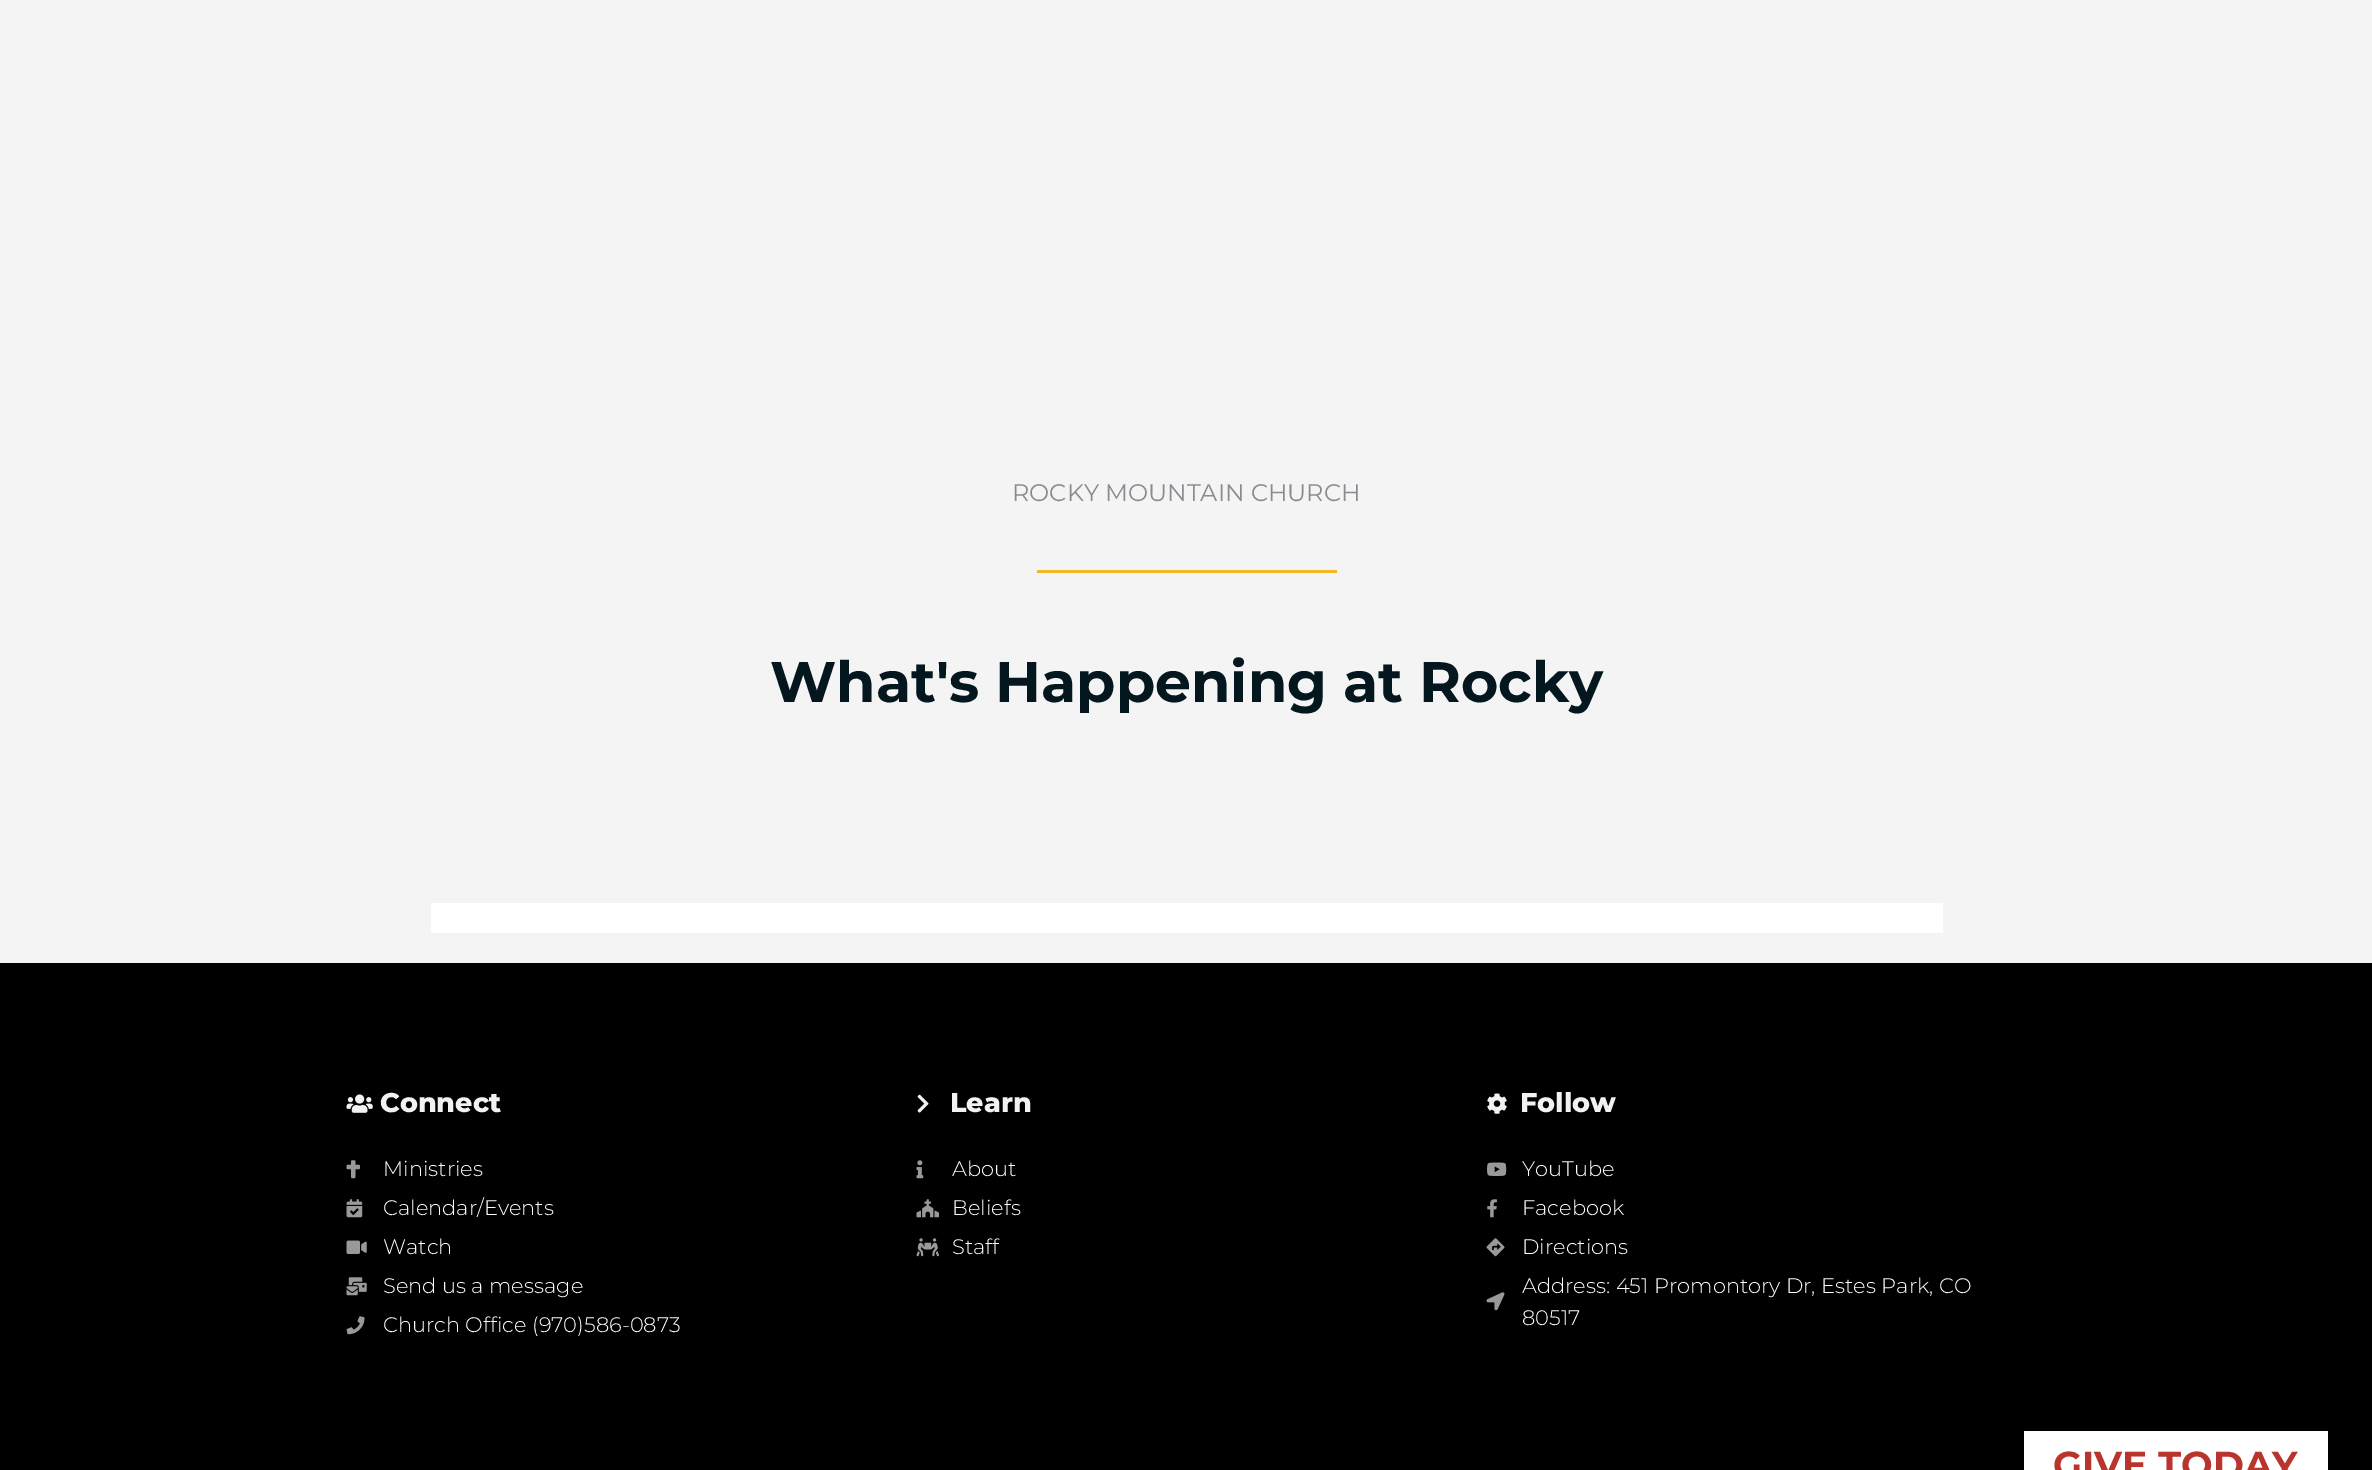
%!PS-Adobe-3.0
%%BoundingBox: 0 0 2372 1470
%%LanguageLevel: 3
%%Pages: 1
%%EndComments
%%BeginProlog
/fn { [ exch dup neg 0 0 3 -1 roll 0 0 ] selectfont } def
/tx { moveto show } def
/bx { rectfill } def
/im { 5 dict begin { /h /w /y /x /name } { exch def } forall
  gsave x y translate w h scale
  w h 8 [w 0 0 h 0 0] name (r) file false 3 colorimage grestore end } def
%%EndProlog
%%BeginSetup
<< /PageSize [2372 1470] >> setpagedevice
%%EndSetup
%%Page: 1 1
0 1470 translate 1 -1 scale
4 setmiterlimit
0.957 0.957 0.961 setrgbcolor
0 0 2372 1470 bx
/Montserrat-Regular 24 fn
0.533 0.549 0.565 setrgbcolor
(ROCKY MOUNTAIN CHURCH) 1012 501 tx
0.949 0.722 0.149 setrgbcolor
1037 570 300 3 bx
/Montserrat-Bold 57 fn
0.02 0.09 0.118 setrgbcolor
(What's Happening at Rocky) 770 702 tx
1 setgray
431 903 1512 30 bx
0 setgray
0 963 2372 507 bx
(image0.raw) 346 1094 27 19 im
/Montserrat-ExtraBold 27 fn
0.949 setgray
(Connect) 380 1112 tx
(image1.raw) 346 1160 14 19 im
/Montserrat-Light 21 fn
1 setgray
(Ministries) 383 1176 tx
(image2.raw) 346 1199 17 19 im
(Calendar/Events) 383 1215 tx
(image3.raw) 346 1240 21 14 im
(Watch) 383 1254 tx
(image4.raw) 346 1277 21 19 im
(Send us a message) 383 1293 tx
(image5.raw) 346 1316 19 19 im
(Church Office \(970\)586-0873) 383 1332 tx
(image6.raw) 917 1094 12 19 im
/Montserrat-ExtraBold 27 fn
0.949 setgray
(Learn) 950 1112 tx
(image7.raw) 916 1160 8 19 im
/Montserrat-Light 21 fn
1 setgray
(About) 952 1176 tx
(image8.raw) 916 1199 23 19 im
(Beliefs) 952 1215 tx
(image9.raw) 916 1238 23 19 im
(Staff) 952 1254 tx
(image10.raw) 1487 1093 20 21 im
/Montserrat-ExtraBold 27 fn
0.949 setgray
(Follow) 1520 1112 tx
(image11.raw) 1487 1162 20 14 im
/Montserrat-Light 21 fn
1 setgray
(YouTube) 1522 1176 tx
(image12.raw) 1487 1199 10 19 im
(Facebook) 1522 1215 tx
(image13.raw) 1486 1238 19 19 im
(Directions) 1522 1254 tx
(image14.raw) 1486 1292 19 19 im
(Address: 451 Promontory Dr, Estes Park, CO) 1522 1293 tx
(80517) 1522 1325 tx
2024 1431 304 39 bx
/Montserrat-Bold 37.5 fn
0.722 0.204 0.173 setrgbcolor
(GIVE TODAY) 2053 1478 tx
showpage
%%EOF
